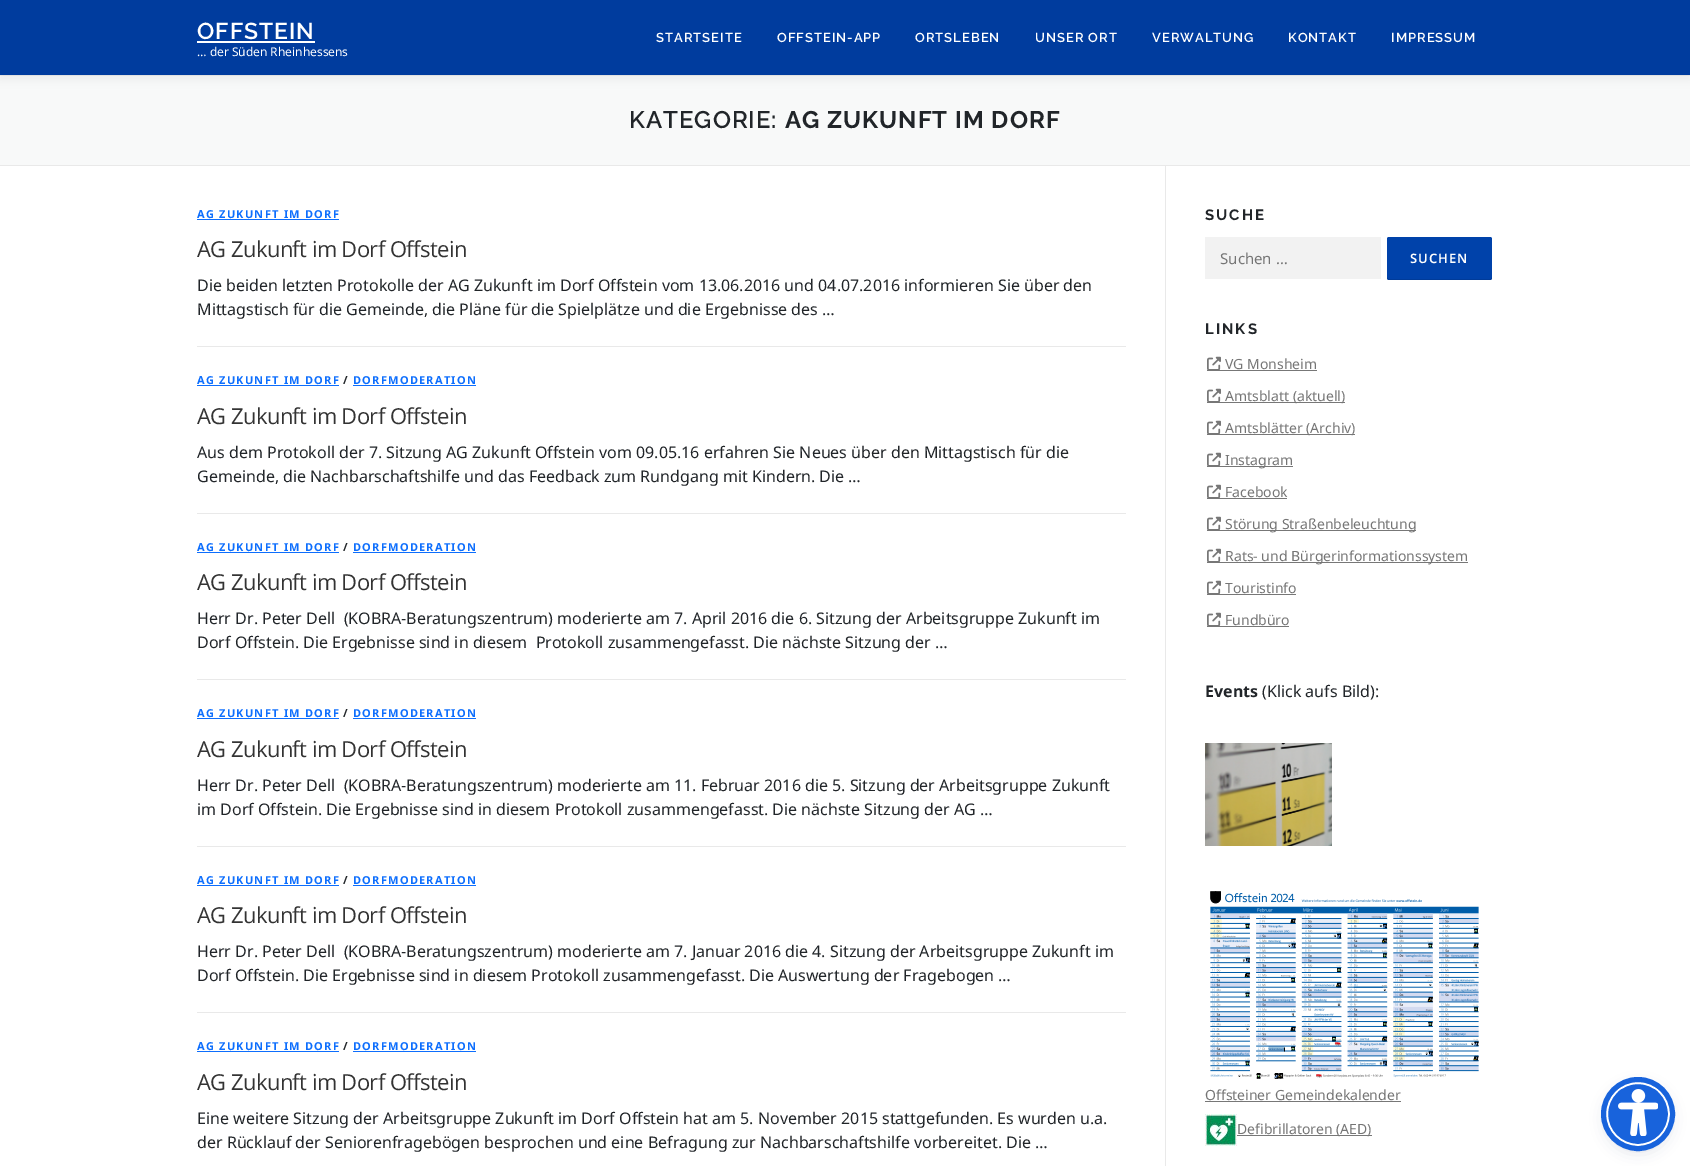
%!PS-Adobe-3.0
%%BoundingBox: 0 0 1690 1166
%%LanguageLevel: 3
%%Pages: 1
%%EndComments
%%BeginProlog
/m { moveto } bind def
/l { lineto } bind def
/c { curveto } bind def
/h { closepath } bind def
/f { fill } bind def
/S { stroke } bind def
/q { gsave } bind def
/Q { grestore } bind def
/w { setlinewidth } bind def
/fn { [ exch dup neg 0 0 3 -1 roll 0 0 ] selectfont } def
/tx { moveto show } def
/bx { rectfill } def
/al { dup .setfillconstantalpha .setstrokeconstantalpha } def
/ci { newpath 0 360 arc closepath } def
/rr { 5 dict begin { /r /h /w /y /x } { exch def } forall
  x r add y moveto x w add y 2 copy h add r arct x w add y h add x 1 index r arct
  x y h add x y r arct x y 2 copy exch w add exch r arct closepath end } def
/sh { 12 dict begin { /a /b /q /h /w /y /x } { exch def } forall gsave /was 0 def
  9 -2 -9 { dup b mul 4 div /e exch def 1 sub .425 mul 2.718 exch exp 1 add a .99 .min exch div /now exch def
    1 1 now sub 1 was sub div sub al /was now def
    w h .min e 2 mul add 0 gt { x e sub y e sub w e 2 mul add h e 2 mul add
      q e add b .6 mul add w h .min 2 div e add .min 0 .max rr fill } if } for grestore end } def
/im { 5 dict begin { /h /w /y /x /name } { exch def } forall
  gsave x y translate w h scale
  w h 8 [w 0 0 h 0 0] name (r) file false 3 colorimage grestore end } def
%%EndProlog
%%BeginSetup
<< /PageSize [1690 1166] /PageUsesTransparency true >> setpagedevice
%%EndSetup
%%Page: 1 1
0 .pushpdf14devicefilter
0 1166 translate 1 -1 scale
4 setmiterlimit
1 setgray
0 0 1690 1166 bx
0.973 0.976 0.976 setrgbcolor
0 76 1690 89 bx
0.914 setgray
0 75 1690 1 bx
0.196 setgray
0 5 1690 75 0 5 0.06 sh
0 0.235 0.62 setrgbcolor
0 0 1690 75 bx
/Raleway-SemiBold 23 fn
1 setgray
197 39 m 1 0 (OFFSTEIN) ashow
197 41 118 2 bx
/NotoSans-Regular 12 fn
(… der Süden Rheinhessens) 197 56 tx
/Raleway-SemiBold 13 fn
656 42 m 1 0 (STARTSEITE) ashow
777 42 m 1 0 (OFFSTEIN-APP) ashow
915 42 m 1 0 (ORTSLEBEN) ashow
1035 42 m 1 0 (UNSER ORT) ashow
1152 42 m 1 0 (VERWALTUNG) ashow
1288 42 m 1 0 (KONTAKT) ashow
1391 42 m 1 0 (IMPRESSUM) ashow
0.914 setgray
0 165 1690 1 bx
/Raleway-SemiBold 24 fn
0.129 0.145 0.161 setrgbcolor
629 128 m 1 0 (KATEGORIE:) ashow
/Raleway-Bold 24 fn
785 128 m 1 0 (AG ZUKUNFT IM DORF) ashow
0.914 setgray
1165 166 1 1000 bx
/NotoSans-Bold 11 fn
0.051 0.431 0.992 setrgbcolor
197 218 m 1.25 0 (AG ZUKUNFT IM DORF) ashow
197 219 142 1 bx
/OpenSans-Regular 22 fn
0.2 setgray
197 257 m -0.6 0 (AG Zukunft im Dorf Offstein) ashow
/NotoSans-Regular 16 fn
0.129 0.145 0.161 setrgbcolor
(Die beiden letzten Protokolle der AG Zukunft im Dorf Offstein vom 13.06.2016 und 04.07.2016 informieren Sie über den) 197 291 tx
(Mittagstisch für die Gemeinde, die Pläne für die Spielplätze und die Ergebnisse des …) 197 315 tx
0.914 setgray
197 346 929 1 bx
/NotoSans-Bold 11 fn
0.051 0.431 0.992 setrgbcolor
197 384 m 1.25 0 (AG ZUKUNFT IM DORF) ashow
197 385 142 1 bx
0.129 0.145 0.161 setrgbcolor
343 384 m 1.25 0 (/) ashow
0.051 0.431 0.992 setrgbcolor
353 384 m 1.25 0 (DORFMODERATION) ashow
353 385 123 1 bx
/OpenSans-Regular 22 fn
0.2 setgray
197 424 m -0.6 0 (AG Zukunft im Dorf Offstein) ashow
/NotoSans-Regular 16 fn
0.129 0.145 0.161 setrgbcolor
(Aus dem Protokoll der 7. Sitzung AG Zukunft Offstein vom 09.05.16 erfahren Sie Neues über den Mittagstisch für die) 197 458 tx
(Gemeinde, die Nachbarschaftshilfe und das Feedback zum Rundgang mit Kindern. Die …) 197 482 tx
0.914 setgray
197 513 929 1 bx
/NotoSans-Bold 11 fn
0.051 0.431 0.992 setrgbcolor
197 551 m 1.25 0 (AG ZUKUNFT IM DORF) ashow
197 552 142 1 bx
0.129 0.145 0.161 setrgbcolor
343 551 m 1.25 0 (/) ashow
0.051 0.431 0.992 setrgbcolor
353 551 m 1.25 0 (DORFMODERATION) ashow
353 552 123 1 bx
/OpenSans-Regular 22 fn
0.2 setgray
197 590 m -0.6 0 (AG Zukunft im Dorf Offstein) ashow
/NotoSans-Regular 16 fn
0.129 0.145 0.161 setrgbcolor
(Herr Dr. Peter Dell  \(KOBRA-Beratungszentrum\) moderierte am 7. April 2016 die 6. Sitzung der Arbeitsgruppe Zukunft im) 197 624 tx
(Dorf Offstein. Die Ergebnisse sind in diesem  Protokoll zusammengefasst. Die nächste Sitzung der …) 197 648 tx
0.914 setgray
197 679 929 1 bx
/NotoSans-Bold 11 fn
0.051 0.431 0.992 setrgbcolor
197 717 m 1.25 0 (AG ZUKUNFT IM DORF) ashow
197 718 142 1 bx
0.129 0.145 0.161 setrgbcolor
343 717 m 1.25 0 (/) ashow
0.051 0.431 0.992 setrgbcolor
353 717 m 1.25 0 (DORFMODERATION) ashow
353 718 123 1 bx
/OpenSans-Regular 22 fn
0.2 setgray
197 757 m -0.6 0 (AG Zukunft im Dorf Offstein) ashow
/NotoSans-Regular 16 fn
0.129 0.145 0.161 setrgbcolor
(Herr Dr. Peter Dell  \(KOBRA-Beratungszentrum\) moderierte am 11. Februar 2016 die 5. Sitzung der Arbeitsgruppe Zukunft) 197 791 tx
(im Dorf Offstein. Die Ergebnisse sind in diesem Protokoll zusammengefasst. Die nächste Sitzung der AG …) 197 815 tx
0.914 setgray
197 846 929 1 bx
/NotoSans-Bold 11 fn
0.051 0.431 0.992 setrgbcolor
197 884 m 1.25 0 (AG ZUKUNFT IM DORF) ashow
197 885 142 1 bx
0.129 0.145 0.161 setrgbcolor
343 884 m 1.25 0 (/) ashow
0.051 0.431 0.992 setrgbcolor
353 884 m 1.25 0 (DORFMODERATION) ashow
353 885 123 1 bx
/OpenSans-Regular 22 fn
0.2 setgray
197 923 m -0.6 0 (AG Zukunft im Dorf Offstein) ashow
/NotoSans-Regular 16 fn
0.129 0.145 0.161 setrgbcolor
(Herr Dr. Peter Dell  \(KOBRA-Beratungszentrum\) moderierte am 7. Januar 2016 die 4. Sitzung der Arbeitsgruppe Zukunft im) 197 957 tx
(Dorf Offstein. Die Ergebnisse sind in diesem Protokoll zusammengefasst. Die Auswertung der Fragebogen …) 197 981 tx
0.914 setgray
197 1012 929 1 bx
/NotoSans-Bold 11 fn
0.051 0.431 0.992 setrgbcolor
197 1050 m 1.25 0 (AG ZUKUNFT IM DORF) ashow
197 1051 142 1 bx
0.129 0.145 0.161 setrgbcolor
343 1050 m 1.25 0 (/) ashow
0.051 0.431 0.992 setrgbcolor
353 1050 m 1.25 0 (DORFMODERATION) ashow
353 1051 123 1 bx
/OpenSans-Regular 22 fn
0.2 setgray
197 1090 m -0.6 0 (AG Zukunft im Dorf Offstein) ashow
/NotoSans-Regular 16 fn
0.129 0.145 0.161 setrgbcolor
(Eine weitere Sitzung der Arbeitsgruppe Zukunft im Dorf Offstein hat am 5. November 2015 stattgefunden. Es wurden u.a.) 197 1124 tx
(der Rücklauf der Seniorenfragebögen besprochen und eine Befragung zur Nachbarschaftshilfe vorbereitet. Die …) 197 1148 tx
/Raleway-Bold 15 fn
1205 220 m 2 0 (SUCHE) ashow
0.949 setgray
1205 237 176 42 bx
/NotoSans-Regular 15 fn
0.459 setgray
(Suchen …) 1220 264 tx
0 0.259 0.667 setrgbcolor
1387 237 105 43 2 rr f
0.1 al
0 setgray
1387 277 m 1387 278 1387 280 1389 280 c 1490 280 l 1492 280 1492 278 1492 277 c 1492 278 1491 279 1490 279 c 1389 279 l 1388 279 1387 278 1387 277 c h f
/NotoSans-SemiBold 13 fn
1 al
1 setgray
1410 263 m 1 0 (SUCHEN) ashow
/Raleway-Bold 15 fn
0.129 0.145 0.161 setrgbcolor
1205 334 m 2 0 (LINKS) ashow
(image0.raw) 1207 356 14 14 im
/NotoSans-Regular 14 fn
0.459 setgray
(VG Monsheim) 1225 369 tx
0.467 setgray
1207 370 110 1 bx
(image0.raw) 1207 388 14 14 im
1207 402 138 1 bx
0.459 setgray
(Amtsblatt \(aktuell\)) 1225 401 tx
(image0.raw) 1207 420 14 14 im
0.467 setgray
1207 434 148 1 bx
0.459 setgray
(Amtsblätter \(Archiv\)) 1225 433 tx
(image0.raw) 1207 452 14 14 im
0.467 setgray
1207 466 86 1 bx
0.459 setgray
(Instagram) 1225 465 tx
(image0.raw) 1207 484 14 14 im
(Facebook) 1225 497 tx
0.467 setgray
1207 498 80 1 bx
(image0.raw) 1207 516 14 14 im
1207 530 209 1 bx
0.459 setgray
(Störung Straßenbeleuchtung) 1225 529 tx
(image0.raw) 1207 548 14 14 im
0.467 setgray
1207 562 261 1 bx
0.459 setgray
(Rats- und Bürgerinformationssystem) 1225 561 tx
(image0.raw) 1207 580 14 14 im
(Touristinfo) 1225 593 tx
0.467 setgray
1207 594 89 1 bx
(image0.raw) 1207 612 14 14 im
0.459 setgray
(Fundbüro) 1225 625 tx
0.467 setgray
1207 626 82 1 bx
/NotoSans-Bold 16 fn
0.129 0.145 0.161 setrgbcolor
(Events) 1205 697 tx
/NotoSans-Regular 16 fn
(\(Klick aufs Bild\):) 1262 697 tx
(image1.raw) 1205 743 127 103 im
(image2.raw) 1210 891 269 188 im
/NotoSans-Regular 14 fn
0.459 setgray
(Offsteiner Gemeindekalender) 1205 1100 tx
0.467 setgray
1205 1101 196 1 bx
(image3.raw) 1205 1114 32 32 im
1237 1135 135 1 bx
0.459 setgray
(Defibrillatoren \(AED\)) 1237 1134 tx
0.365 0.392 0.58 setrgbcolor
1606 1084 64 64 32 2 0.2 sh
0.145 0.173 0.38 setrgbcolor
1606 1087 64 64 32 7.5 0.15 sh
0.094 0.388 0.863 setrgbcolor
1638 1114 31 ci q f Q
1 setgray
2 w
S
0.094 0.388 0.863 setrgbcolor
5 w
1638 1114 34.5 ci S
(image4.raw) 1618 1089 40 47 im
.poppdf14devicefilter showpage
%%EOF
